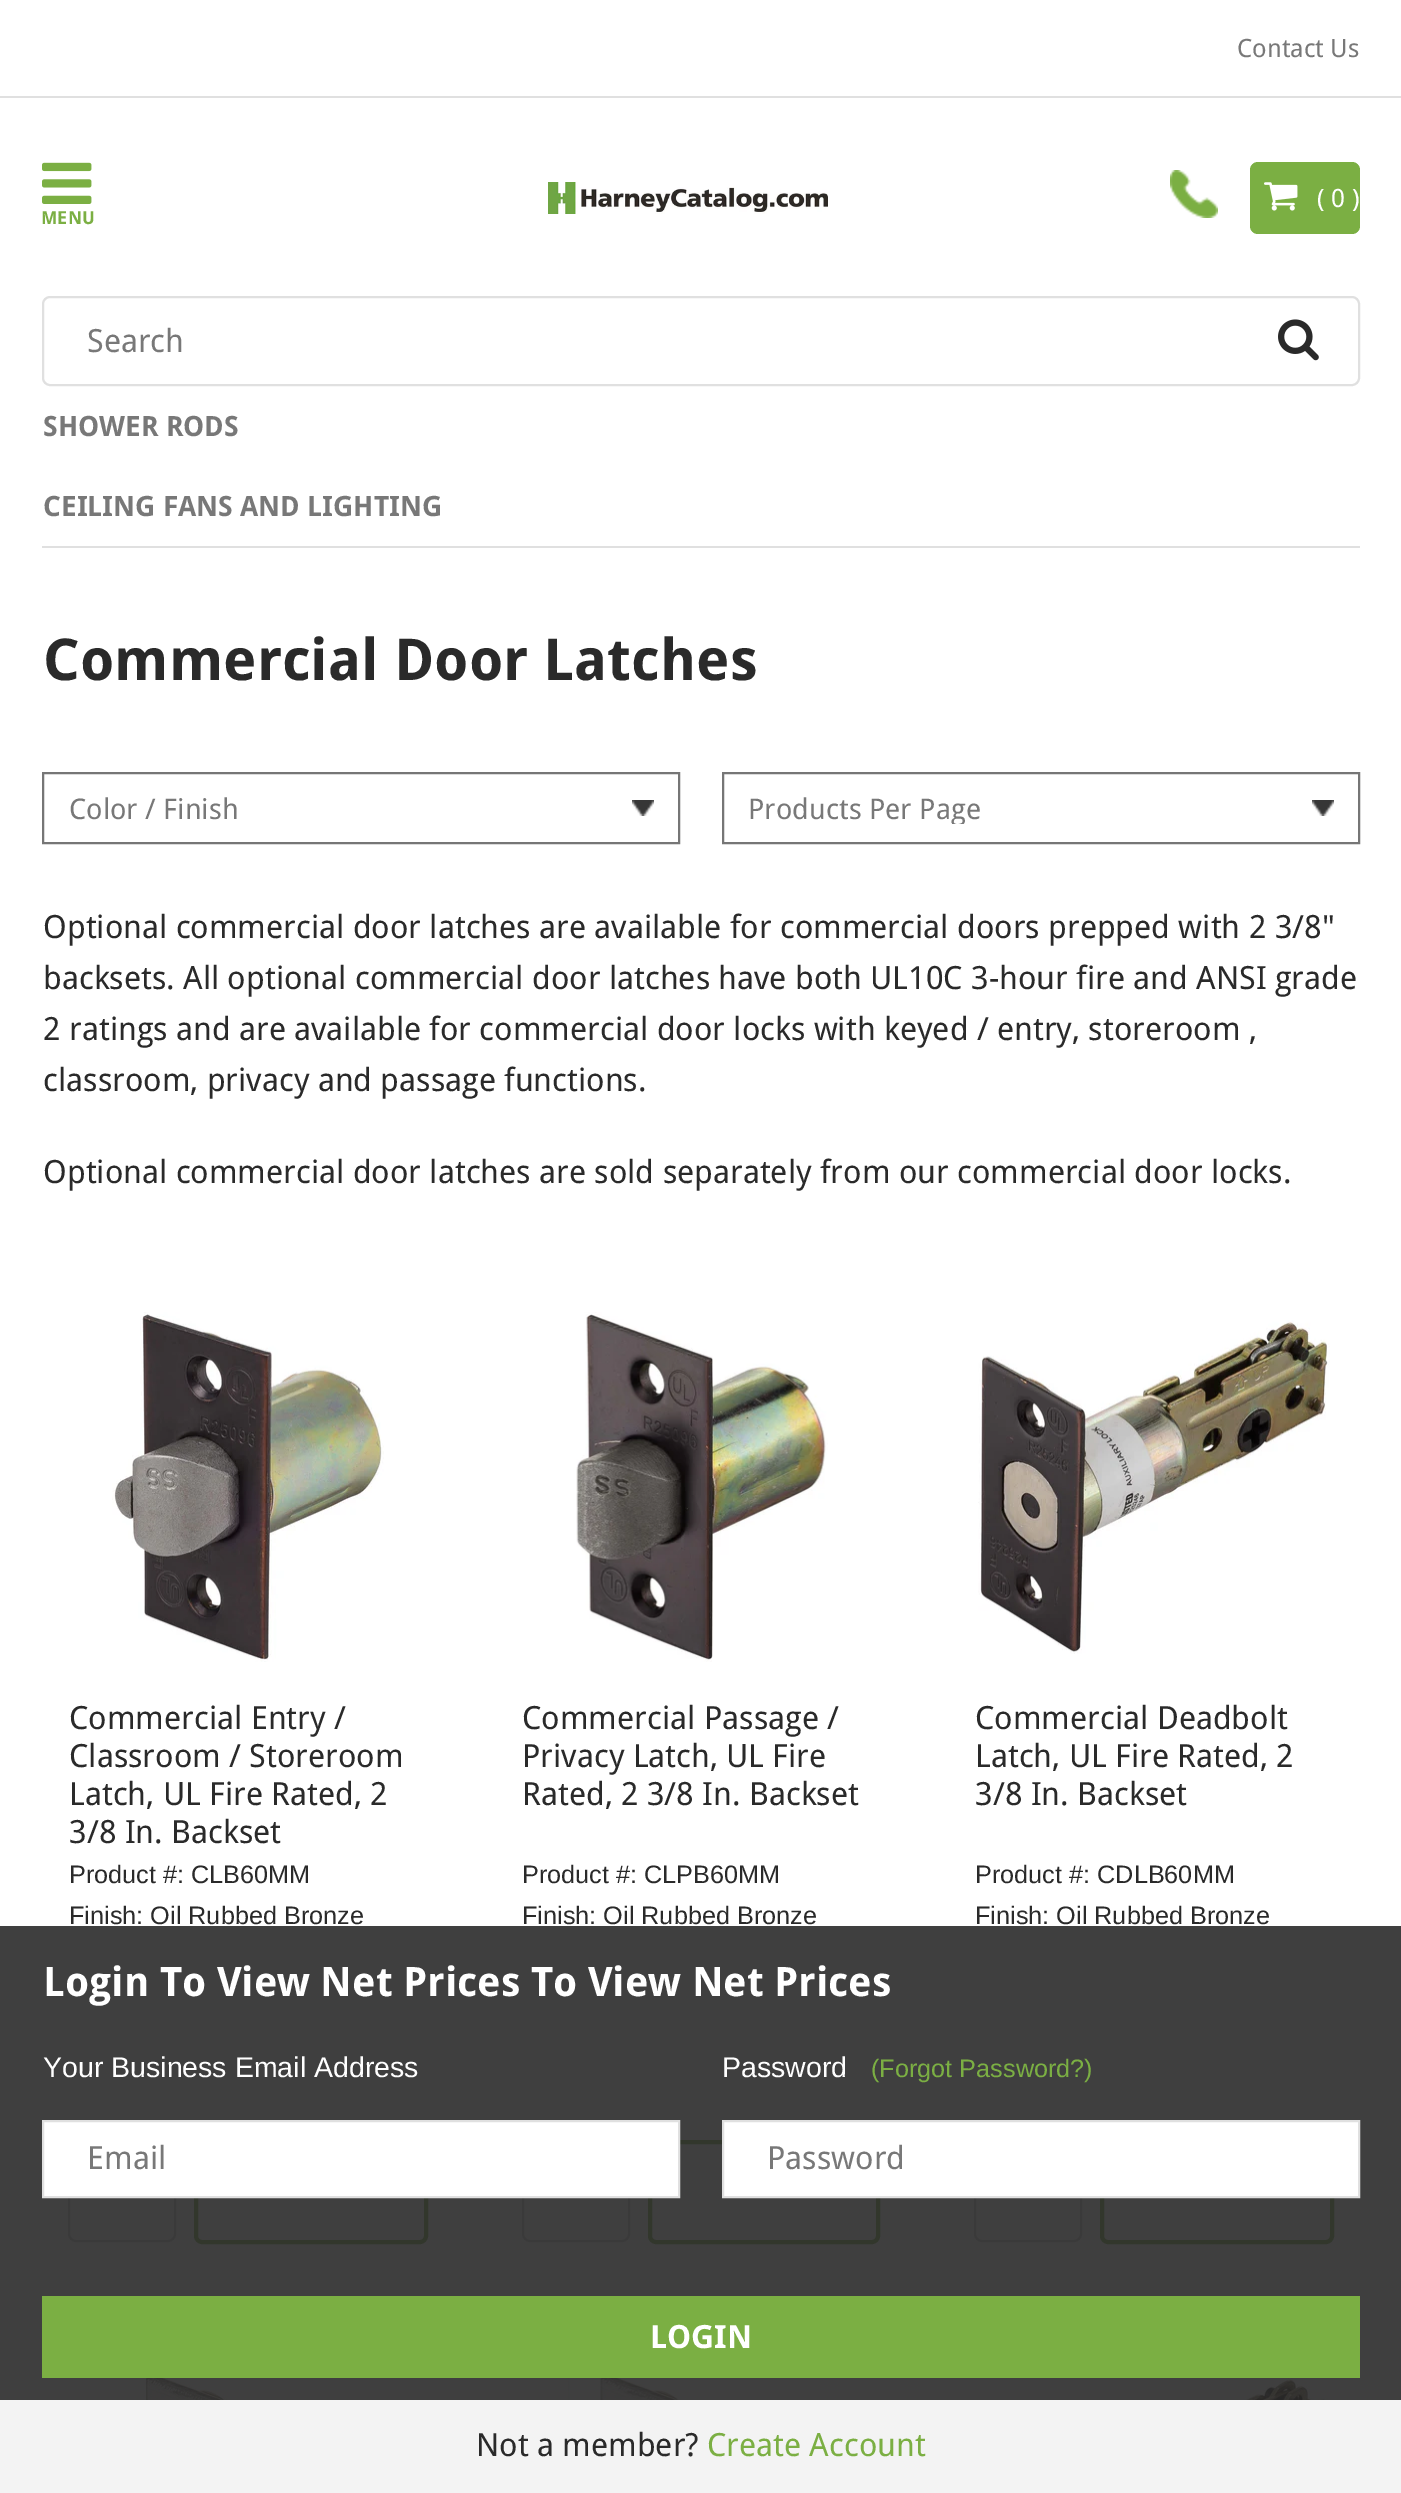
%!PS-Adobe-3.0
%%BoundingBox: 0 0 1401 2493
%%LanguageLevel: 3
%%Pages: 1
%%EndComments
%%BeginProlog
/m { moveto } bind def
/l { lineto } bind def
/h { closepath } bind def
/f { fill } bind def
/S { stroke } bind def
/q { gsave } bind def
/Q { grestore } bind def
/w { setlinewidth } bind def
/fn { [ exch dup neg 0 0 3 -1 roll 0 0 ] selectfont } def
/tx { moveto show } def
/bx { rectfill } def
/al { dup .setfillconstantalpha .setstrokeconstantalpha } def
/rr { 5 dict begin { /r /h /w /y /x } { exch def } forall
  x r add y moveto x w add y 2 copy h add r arct x w add y h add x 1 index r arct
  x y h add x y r arct x y 2 copy exch w add exch r arct closepath end } def
/im { 5 dict begin { /h /w /y /x /name } { exch def } forall
  gsave x y translate w h scale
  w h 8 [w 0 0 h 0 0] name (r) file false 3 colorimage grestore end } def
%%EndProlog
%%BeginSetup
<< /PageSize [1401 2493] /PageUsesTransparency true >> setpagedevice
%%EndSetup
%%Page: 1 1
0 .pushpdf14devicefilter
0 2493 translate 1 -1 scale
4 setmiterlimit
1 setgray
0 0 1401 2493 bx
0.878 setgray
0 96 1401 2 bx
/DroidSans-Regular 25.25 fn
0.471 setgray
(Contact Us) 1237 57 tx
(image0.raw) 548 182 280 32 im
(image1.raw) 1170 170 48 48 im
0.482 0.686 0.263 setrgbcolor
1250 162 110 72 8 rr f
(image2.raw) 1264 182 34 29 im
1 setgray
(\( 0 \)) 1317 207 tx
(image3.raw) 42 162 50 42 im
/DroidSans-Bold 18 fn
0.482 0.686 0.263 setrgbcolor
(MENU) 41 224 tx
0.878 setgray
2 w
43 297 1316 88 7 rr S
/DroidSans-Regular 32 fn
0.471 setgray
(Search) 87 352 tx
(image4.raw) 1278 319 41 42 im
0.878 setgray
42 546 1318 2 bx
/DroidSans-Bold 28 fn
0.471 setgray
(SHOWER RODS) 43 436 tx
(CEILING FANS AND LIGHTING) 43 516 tx
/DroidSans-Bold 57.7 fn
0.165 setgray
(Commercial Door Latches) 43 680 tx
(image5.raw) 632 800 22 16 im
0.463 setgray
43 773 636 70 rectstroke
/DroidSans-Regular 28.5 fn
0.471 setgray
(Color / Finish) 69 819 tx
(image5.raw) 1312 800 22 16 im
0.463 setgray
723 773 636 70 rectstroke
q
748 792 550 32 rectclip
0.471 setgray
(Products Per Page) 748 819 tx
Q
/DroidSans-Regular 32 fn
0.165 setgray
(Optional commercial door latches are available for commercial doors prepped with 2 3/8") 43 938 tx
(backsets. All optional commercial door latches have both UL10C 3-hour fire and ANSI grade) 43 989 tx
(2 ratings and are available for commercial door locks with keyed / entry, storeroom ,) 43 1040 tx
(classroom, privacy and passage functions.) 43 1091 tx
(Optional commercial door latches are sold separately from our commercial door locks.) 43 1183 tx
(image6.raw) 112 1312 270 350 im
(image7.raw) 114 1314 270 348 im
(Commercial Entry /) 69 1729 tx
(Classroom / Storeroom) 69 1767 tx
(Latch, UL Fire Rated, 2) 69 1805 tx
(3/8 In. Backset) 69 1843 tx
/LiberationSans-Regular 25.25 fn
(Product #: CLB60MM) 69 1883 tx
(Finish: Oil Rubbed Bronze) 69 1924 tx
0.8 setgray
69 2135 106 106 7 rr S
0.482 0.686 0.263 setrgbcolor
4 w
196 2142 230 100 6 rr S
(image8.raw) 576 1312 252 350 im
/DroidSans-Regular 32 fn
0.165 setgray
(Commercial Passage /) 522 1729 tx
(Privacy Latch, UL Fire) 522 1767 tx
(Rated, 2 3/8 In. Backset) 522 1805 tx
/LiberationSans-Regular 25.25 fn
(Product #: CLPB60MM) 522 1883 tx
(Finish: Oil Rubbed Bronze) 522 1924 tx
0.8 setgray
2 w
523 2135 106 106 7 rr S
0.482 0.686 0.263 setrgbcolor
4 w
650 2142 228 100 6 rr S
(image9.raw) 980 1320 350 334 im
(image10.raw) 978 1323 350 331 im
/DroidSans-Regular 32 fn
0.165 setgray
(Commercial Deadbolt) 975 1729 tx
(Latch, UL Fire Rated, 2) 975 1767 tx
(3/8 In. Backset) 975 1805 tx
/LiberationSans-Regular 25.25 fn
(Product #: CDLB60MM) 975 1883 tx
(Finish: Oil Rubbed Bronze) 975 1924 tx
0.8 setgray
2 w
975 2135 106 106 7 rr S
0.482 0.686 0.263 setrgbcolor
4 w
1102 2142 230 100 6 rr S
(image11.raw) 144 2378 1 22 im
(image12.raw) 145 2378 235 22 im
(image13.raw) 566 2378 267 22 im
(image14.raw) 978 2378 352 22 im
0.9 al
0.165 setgray
0 1926 1401 474 bx
/DroidSans-Bold 40.5 fn
1 al
1 setgray
(Login To View Net Prices To View Net Prices) 43 1996 tx
/LiberationSans-Regular 28.5 fn
(Your Business Email Address) 43 2077 tx
43 2121 m 679 2121 l 679 2197 l 43 2197 l h q f Q
0.878 setgray
2 w
S
/DroidSans-Regular 32 fn
0.471 setgray
(Email) 87 2169 tx
/LiberationSans-Regular 28.5 fn
1 setgray
(Password) 722 2077 tx
/LiberationSans-Regular 25.25 fn
0.482 0.686 0.263 setrgbcolor
(\(Forgot Password?\)) 871 2077 tx
1 setgray
723 2121 m 1359 2121 l 1359 2197 l 723 2197 l h q f Q
0.878 setgray
S
/DroidSans-Regular 32 fn
0.471 setgray
(Password) 767 2169 tx
0.482 0.686 0.263 setrgbcolor
42 2296 1318 82 bx
/DroidSans-Bold 32 fn
1 setgray
(LOGIN) 650 2348 tx
0.953 setgray
0 2400 1401 93 bx
/DroidSans-Regular 32 fn
0.165 setgray
(Not a member?) 476 2456 tx
0.482 0.686 0.263 setrgbcolor
(Create Account) 707 2456 tx
.poppdf14devicefilter showpage
%%EOF
